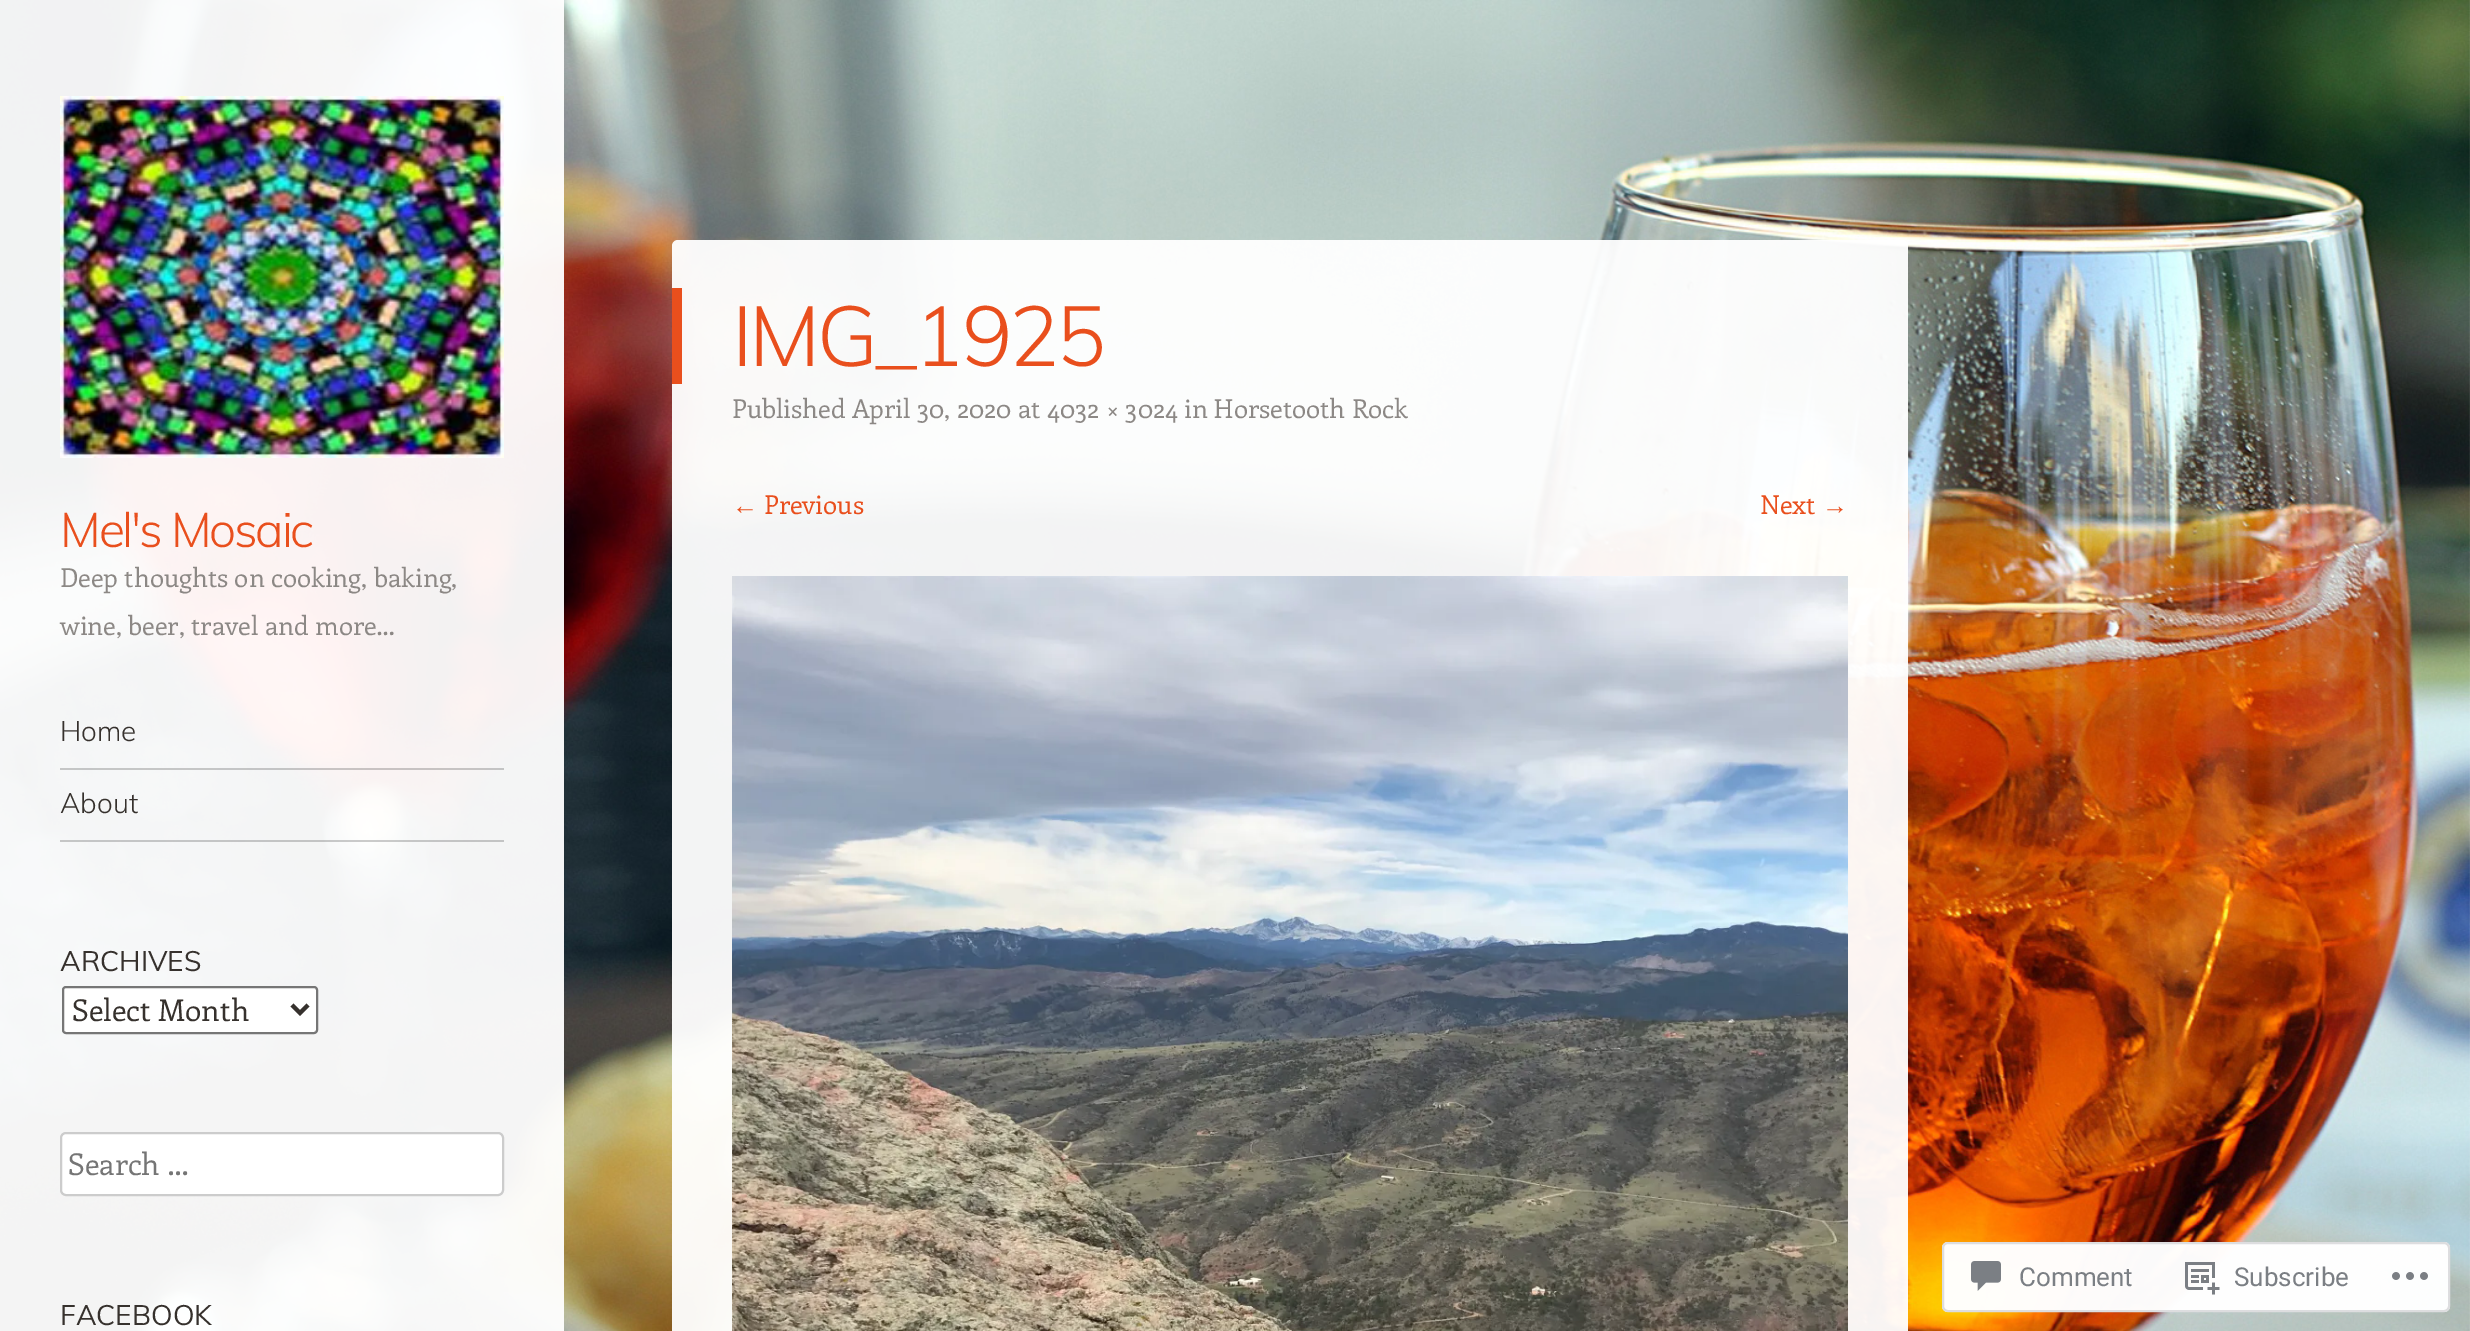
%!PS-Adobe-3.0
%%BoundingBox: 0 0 2470 1331
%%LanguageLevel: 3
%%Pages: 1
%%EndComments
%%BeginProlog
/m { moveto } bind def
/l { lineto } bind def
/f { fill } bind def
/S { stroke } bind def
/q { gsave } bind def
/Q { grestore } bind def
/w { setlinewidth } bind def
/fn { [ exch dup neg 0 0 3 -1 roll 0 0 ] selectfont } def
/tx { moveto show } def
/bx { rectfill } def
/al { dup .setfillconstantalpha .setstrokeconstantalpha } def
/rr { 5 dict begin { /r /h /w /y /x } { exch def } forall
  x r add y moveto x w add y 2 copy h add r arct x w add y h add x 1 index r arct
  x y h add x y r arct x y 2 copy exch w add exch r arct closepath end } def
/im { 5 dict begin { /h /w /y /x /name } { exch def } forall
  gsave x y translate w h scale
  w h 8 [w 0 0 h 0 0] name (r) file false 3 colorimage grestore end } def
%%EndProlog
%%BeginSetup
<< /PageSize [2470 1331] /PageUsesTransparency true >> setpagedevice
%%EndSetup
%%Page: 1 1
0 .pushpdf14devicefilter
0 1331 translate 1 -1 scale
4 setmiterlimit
1 setgray
0 0 2470 1331 bx
(image0.raw) 0 0 2470 1331 im
0.95 al
0 0 564 1331 bx
672 240 1236 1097 6 rr f
1 al
0.914 0.31 0.114 setrgbcolor
672 288 10 96 bx
/Muli-Light 84 fn
732 366 m -3.25 0 (IMG_1925) ashow
/Enriqueta-Regular 26 fn
0.549 0.533 0.522 setrgbcolor
(Published April 30, 2020 at 4032 × 3024 in Horsetooth Rock) 732 418 tx
/LiberationSerif-Regular 26 fn
0.914 0.31 0.114 setrgbcolor
(←) 732 514 tx
/Enriqueta-Regular 26 fn
(Previous) 764 514 tx
(Next) 1760 514 tx
/LiberationSerif-Regular 26 fn
(→) 1822 514 tx
(image1.raw) 732 576 1116 755 im
(image2.raw) 60 96 444 362 im
/Muli-Light 48 fn
60 547 m -2.2 0 (Mel's Mosaic) ashow
/Enriqueta-Regular 26 fn
0.549 0.533 0.522 setrgbcolor
(Deep thoughts on cooking, baking,) 60 587 tx
(wine, beer, travel and more…) 60 635 tx
0.2 al
0 setgray
60 768 444 2 bx
/Muli-Light 28 fn
1 al
0.212 0.192 0.176 setrgbcolor
(Home) 60 741 tx
0.2 al
0 setgray
60 840 444 2 bx
1 al
0.212 0.192 0.176 setrgbcolor
(About) 60 813 tx
/Muli-Regular 28 fn
(ARCHIVES) 60 971 tx
1 setgray
63 987 254 46 3 rr q f Q
0.463 setgray
2 w
S
0.212 0.192 0.176 setrgbcolor
4 w
292 1005 m 300 1013 l 308 1005 l S
/Enriqueta-Regular 30 fn
(Select Month) 72 1021 tx
1 setgray
61 1133 442 62 5 rr q f Q
0.8 setgray
2 w
S
0.459 setgray
(Search …) 68 1175 tx
/Muli-Regular 28 fn
0.212 0.192 0.176 setrgbcolor
(FACEBOOK) 60 1325 tx
0.98 al
1 setgray
1942 1242 508 70 6 rr f
0.863 0.863 0.871 setrgbcolor
1943 1243 506 68 5 rr S
1 al
(image3.raw) 1971 1261 30 30 im
/Roboto-Regular 26 fn
0.482 0.498 0.518 setrgbcolor
(Comment) 2019 1286 tx
(image4.raw) 2185 1262 35 33 im
(Subscribe) 2234 1286 tx
(image5.raw) 2392 1272 36 8 im
.poppdf14devicefilter showpage
%%EOF
